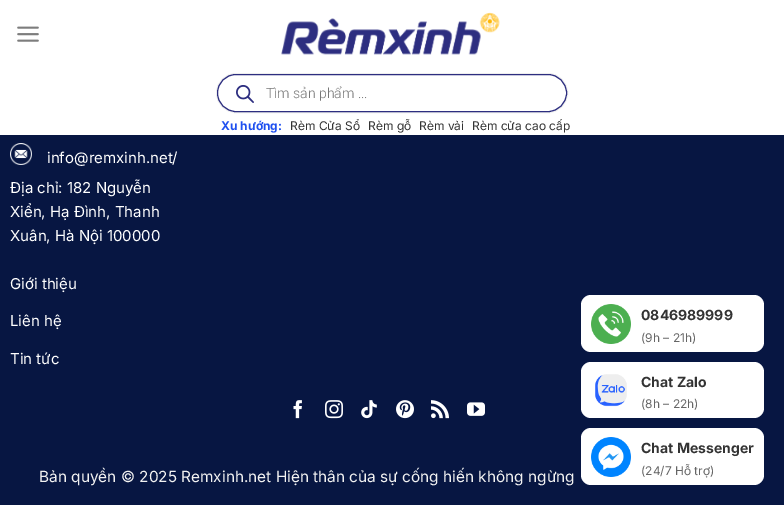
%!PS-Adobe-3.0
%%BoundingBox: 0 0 784 505
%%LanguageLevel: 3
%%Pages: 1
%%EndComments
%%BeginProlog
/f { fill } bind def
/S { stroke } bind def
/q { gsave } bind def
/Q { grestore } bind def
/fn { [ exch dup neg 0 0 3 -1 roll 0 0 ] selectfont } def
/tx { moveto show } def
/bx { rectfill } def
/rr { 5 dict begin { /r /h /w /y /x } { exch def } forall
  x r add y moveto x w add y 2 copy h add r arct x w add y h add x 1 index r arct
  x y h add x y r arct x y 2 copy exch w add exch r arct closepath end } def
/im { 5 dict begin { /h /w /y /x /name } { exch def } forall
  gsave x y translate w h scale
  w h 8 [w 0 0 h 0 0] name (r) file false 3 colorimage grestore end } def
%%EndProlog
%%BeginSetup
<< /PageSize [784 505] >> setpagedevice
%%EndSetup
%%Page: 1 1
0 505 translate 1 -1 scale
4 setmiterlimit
0.027 0.086 0.259 setrgbcolor
0 0 784 505 bx
1 setgray
0 0 784 135 bx
(image0.raw) 17 26 22 16 im
(image1.raw) 281 12 219 43 im
0.933 setgray
216.5 73.5 351 39 19.5 rr S
1 setgray
217.5 74.5 349 37 18.5 rr q f Q
0.176 0.18 0.502 setrgbcolor
S
(image2.raw) 236 85 18 18 im
/Roboto-Light 14 fn
0.467 setgray
(Tìm sản phẩm ...) 266 98 tx
/Inter-Bold 12 fn
0.122 0.314 0.941 setrgbcolor
(Xu hướng:) 221 130 tx
/Inter-Regular 12 fn
0.2 setgray
(Rèm Cửa Sổ) 290 130 tx
(Rèm gỗ) 368 130 tx
(Rèm vải) 419 130 tx
(Rèm cửa cao cấp) 472 130 tx
(image3.raw) 10 143 22 22 im
/Inter-Regular 15 fn
1 setgray
(info@remxinh.net/) 47 163 tx
(Địa chỉ: 182 Nguyễn) 10 193 tx
(Xiển, Hạ Đình, Thanh) 10 217 tx
(Xuân, Hà Nội 100000) 10 241 tx
(Giới thiệu) 10 289 tx
(Liên hệ) 10 326 tx
(Tin tức) 10 364 tx
(image4.raw) 293 400 9 19 im
(image5.raw) 325 400 18 19 im
(image6.raw) 361 400 16 19 im
(image7.raw) 396 400 18 19 im
(image8.raw) 431 400 18 19 im
(image9.raw) 467 402 18 14 im
/Inter-Regular 15.4 fn
0.945 setgray
(Bản quyền © 2025 Remxinh.net Hiện thân của sự cống hiến không ngừng) 39 482 tx
1 setgray
581 295 183 57 10 rr f
(image10.raw) 591 304 40 40 im
/Inter-Bold 14 fn
0.2 setgray
(0846989999) 641 320 tx
/Inter-Regular 12 fn
0.4 setgray
(\(9h – 21h\)) 641 342 tx
1 setgray
581 362 183 56 10 rr f
(image11.raw) 595 374 32 33 im
/Inter-Bold 14 fn
0.2 setgray
(Chat Zalo) 641 387 tx
/Inter-Regular 12 fn
0.4 setgray
(\(8h – 22h\)) 641 408 tx
1 setgray
581 428 183 57 10 rr f
(image12.raw) 591 437 40 40 im
/Inter-Bold 14 fn
0.2 setgray
(Chat Messenger) 641 453 tx
/Inter-Regular 12 fn
0.4 setgray
(\(24/7 Hỗ trợ\)) 641 475 tx
showpage
%%EOF
